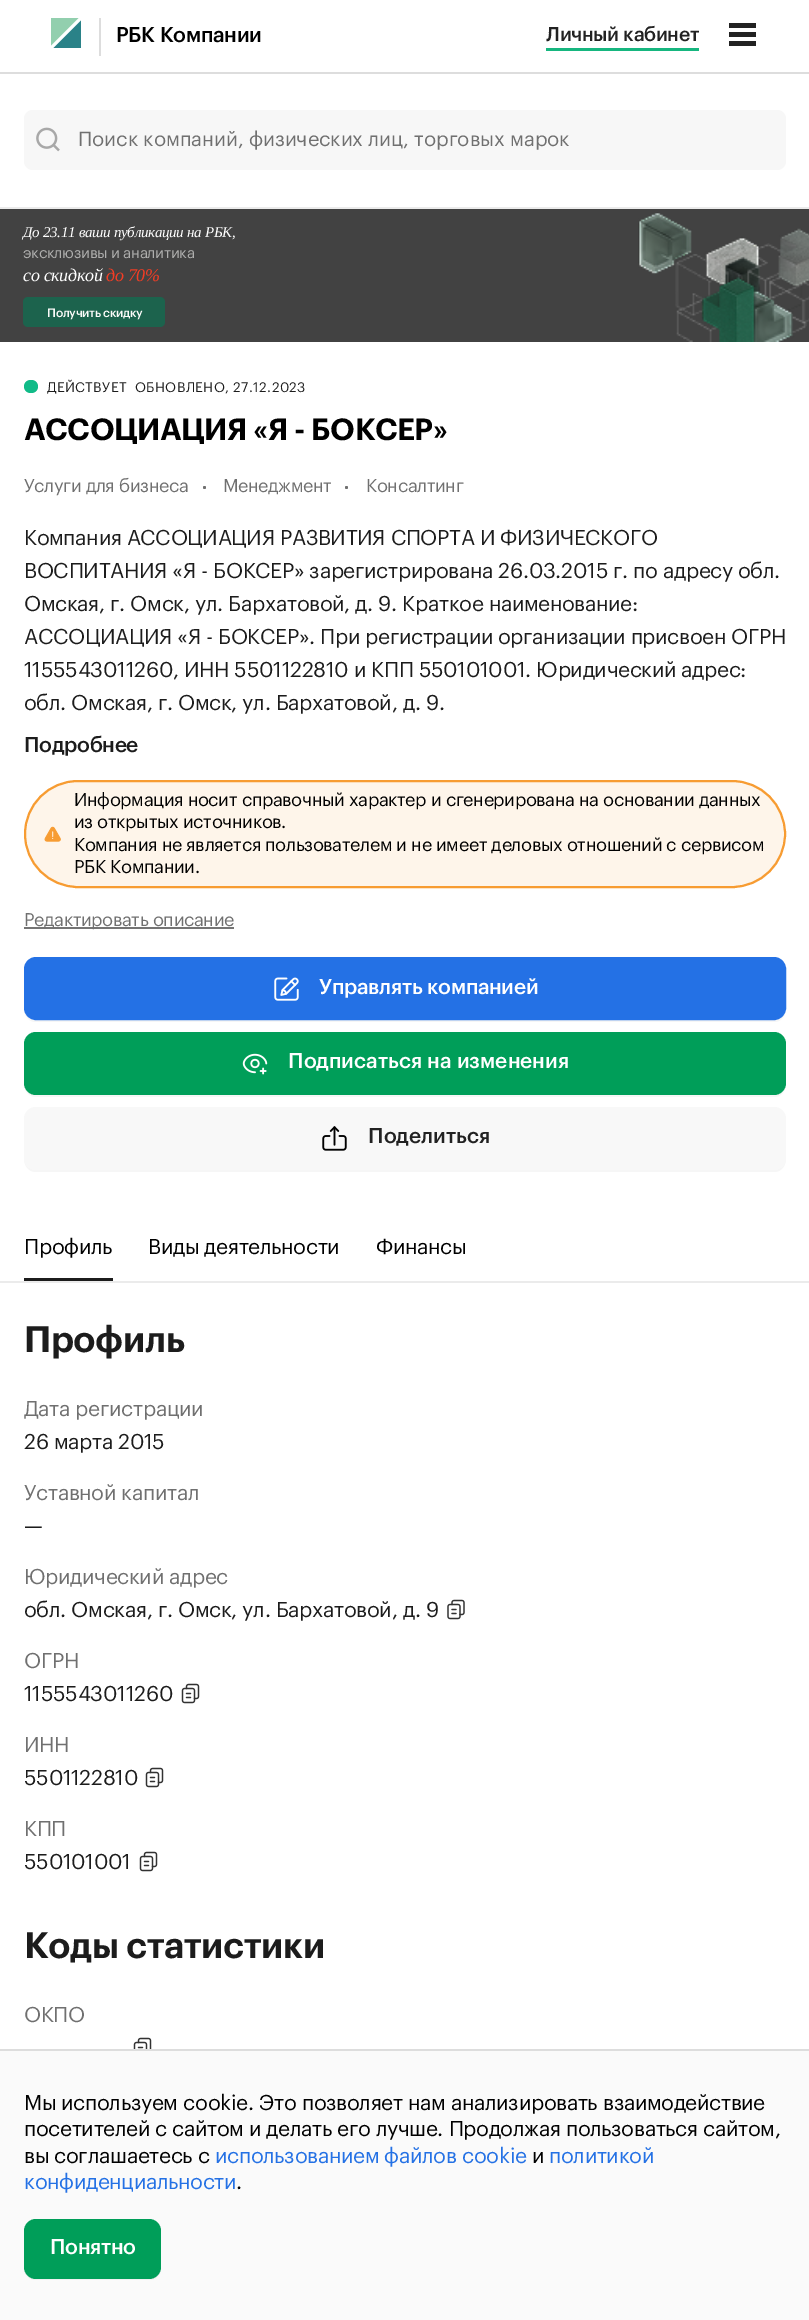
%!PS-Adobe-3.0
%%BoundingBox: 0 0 809 2320
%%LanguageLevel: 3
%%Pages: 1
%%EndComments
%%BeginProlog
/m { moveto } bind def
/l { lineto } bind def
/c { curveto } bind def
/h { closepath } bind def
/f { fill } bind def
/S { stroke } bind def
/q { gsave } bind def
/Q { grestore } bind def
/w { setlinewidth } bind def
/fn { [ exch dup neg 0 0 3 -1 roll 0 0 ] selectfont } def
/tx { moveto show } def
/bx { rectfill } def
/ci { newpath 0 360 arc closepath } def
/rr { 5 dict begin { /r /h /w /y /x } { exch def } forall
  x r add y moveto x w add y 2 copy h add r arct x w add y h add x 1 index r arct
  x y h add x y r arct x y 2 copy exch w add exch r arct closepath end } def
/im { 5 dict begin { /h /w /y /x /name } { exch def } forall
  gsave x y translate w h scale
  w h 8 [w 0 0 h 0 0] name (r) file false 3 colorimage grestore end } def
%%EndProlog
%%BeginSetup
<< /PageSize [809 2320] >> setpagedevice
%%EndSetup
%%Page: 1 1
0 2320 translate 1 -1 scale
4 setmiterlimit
1 setgray
0 0 809 2320 bx
0.867 setgray
0 72 809 2 bx
0.573 0.812 0.682 setrgbcolor
51 18 m 51 45.5 l 78.5 18 l h eofill
0.165 0.51 0.533 setrgbcolor
53.5 48 m 81 48 l 81 20.5 l h eofill
0.867 setgray
99 18 2 38 bx
/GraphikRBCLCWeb-Medium 21 fn
0 setgray
116 42 m -0.3 0 (РБК Компании) ashow
/GraphikRBCLCWeb-Medium 19.5 fn
0.133 setgray
546 41 m -0.3 0 (Личный кабинет) ashow
0.086 0.714 0.498 setrgbcolor
546 48 153 3 bx
0.133 setgray
729 23 27 5 bx
729 32 27 5 bx
729 41 27 5 bx
0.922 setgray
0 207 809 2 bx
0.969 setgray
24 110 762 60 9 rr f
(image0.raw) 36 127 24 25 im
/GraphikRBCLCWeb-Regular 20 fn
0.439 setgray
(Поиск компаний, физических лиц, торговых марок) 78 146 tx
0.259 setgray
0 209 809 133 bx
/LiberationSerif-Italic 15 fn
1 setgray
23 237 m -0.3 0 (До 23.11 ваши публикации на РБК,) ashow
/GraphikRBCLCWeb-Regular 15 fn
0.686 0.686 0.682 setrgbcolor
23 258 m -0.3 0 (эксклюзивы и аналитика) ashow
/LiberationSerif-Italic 18 fn
1 setgray
23 281 m -0.3 0 (со скидкой) ashow
0.953 0.239 0.145 setrgbcolor
106 281 m -0.3 0 (до 70%) ashow
0.11 0.388 0.302 setrgbcolor
23 297 142 30 5 rr f
/GraphikRBCLCWeb-Medium 12 fn
0.984 0.984 0.976 setrgbcolor
47 317 m -0.3 0 (Получить скидку) ashow
(image1.raw) 638 212 171 130 im
0.922 setgray
0 1281 809 2 bx
0.067 0.733 0.533 setrgbcolor
24 380 14 13 6.5 rr f
/GraphikRBCLCWeb-Regular 13.5 fn
0.11 setgray
47 392 m 0.4 0 (ДЕЙСТВУЕТ) ashow
135 392 m 0.4 0 (ОБНОВЛЕНО, 27.12.2023) ashow
/GraphikRBCLCWeb-SemiBold 30 fn
0 setgray
24 440 m -0.3 0 (АССОЦИАЦИЯ «Я - БОКСЕР») ashow
/GraphikRBCLCWeb-Regular 18 fn
0.439 setgray
24 492 m -0.3 0 (Услуги для бизнеса) ashow
204.5 487.5 1.5 ci f
223 492 m -0.3 0 (Менеджмент) ashow
346.5 487.5 1.5 ci f
366 492 m -0.3 0 (Консалтинг) ashow
/GraphikRBCLCWeb-Regular 21 fn
0.11 setgray
24 545 m -0.3 0 (Компания АССОЦИАЦИЯ РАЗВИТИЯ СПОРТА И ФИЗИЧЕСКОГО) ashow
24 578 m -0.3 0 (ВОСПИТАНИЯ «Я - БОКСЕР» зарегистрирована 26.03.2015 г. по адресу обл.) ashow
24 611 m -0.3 0 (Омская, г. Омск, ул. Бархатовой, д. 9. Краткое наименование:) ashow
24 644 m -0.3 0 (АССОЦИАЦИЯ «Я - БОКСЕР». При регистрации организации присвоен ОГРН) ashow
24 677 m -0.3 0 (1155543011260, ИНН 5501122810 и КПП 550101001. Юридический адрес:) ashow
24 710 m -0.3 0 (обл. Омская, г. Омск, ул. Бархатовой, д. 9.) ashow
/GraphikRBCLCWeb-Medium 21 fn
24 752 m -0.3 0 (Подробнее) ashow
0.996 0.961 0.918 setrgbcolor
25 781 760 106 53 rr q f Q
0.969 0.612 0.196 setrgbcolor
2 w
S
(image2.raw) 44 826 17 16 im
/GraphikRBCLCWeb-Regular 18 fn
0 setgray
74 806 m -0.3 0 (Информация носит справочный характер и сгенерирована на основании данных) ashow
74 828 m -0.3 0 (из открытых источников.) ashow
74 851 m -0.3 0 (Компания не является пользователем и не имеет деловых отношений с сервисом) ashow
74 873 m -0.3 0 (РБК Компании.) ashow
0.455 setgray
24 927 210 2 bx
0.439 setgray
24 926 m -0.3 0 (Редактировать описание) ashow
0.965 setgray
24 1008 m 24 1015 28 1022 36 1022 c 774 1022 l 782 1022 786 1015 786 1008 c 786 1015 781 1020 774 1020 c 36 1020 l 29 1020 24 1015 24 1008 c h f
0.141 0.443 0.898 setrgbcolor
25 958 760 61 11 rr q f Q
S
(image3.raw) 274 977 25 24 im
/GraphikRBCLCWeb-Medium 21 fn
1 setgray
319 994 m -0.3 0 (Управлять компанией) ashow
0.965 setgray
24 1083 m 24 1090 28 1097 36 1097 c 774 1097 l 782 1097 786 1090 786 1083 c 786 1090 781 1095 774 1095 c 36 1095 l 29 1095 24 1090 24 1083 c h f
0 0.62 0.349 setrgbcolor
24 1032 762 63 12 rr f
(image4.raw) 242 1053 26 22 im
1 setgray
(Подписаться на изменения) 288 1068 tx
0.965 setgray
24 1158 m 24 1165 28 1172 36 1172 c 774 1172 l 782 1172 786 1165 786 1158 c 786 1165 781 1170 774 1170 c 36 1170 l 29 1170 24 1165 24 1158 c h f
0.973 setgray
24 1107 762 63 12 rr f
(image5.raw) 322 1126 25 25 im
0.133 setgray
(Поделиться) 368 1143 tx
0.11 setgray
24 1278 89 3 bx
/GraphikRBCLCWeb-Regular 21 fn
0 setgray
24 1254 m -0.3 0 (Профиль) ashow
148 1254 m -0.3 0 (Виды деятельности) ashow
376 1254 m -0.3 0 (Финансы) ashow
/GraphikRBCLCWeb-SemiBold 36 fn
0.11 setgray
24 1352 m -0.3 0 (Профиль) ashow
/GraphikRBCLCWeb-Regular 21 fn
0.439 setgray
24 1416 m -0.3 0 (Дата регистрации) ashow
0.11 setgray
24 1449 m -0.3 0 (26 марта 2015) ashow
0.439 setgray
24 1500 m -0.3 0 (Уставной капитал) ashow
0.11 setgray
24 1533 m -0.3 0 (—) ashow
0.439 setgray
24 1584 m -0.3 0 (Юридический адрес) ashow
0.11 setgray
24 1617 m -0.3 0 (обл. Омская, г. Омск, ул. Бархатовой, д. 9) ashow
(image6.raw) 447 1599 18 21 im
0.439 setgray
24 1668 m -0.3 0 (ОГРН) ashow
0.11 setgray
24 1701 m -0.3 0 (1155543011260) ashow
(image7.raw) 181 1683 19 21 im
0.439 setgray
24 1752 m -0.3 0 (ИНН) ashow
0.11 setgray
24 1785 m -0.3 0 (5501122810) ashow
(image7.raw) 145 1767 19 21 im
0.439 setgray
24 1836 m -0.3 0 (КПП) ashow
0.11 setgray
24 1869 m -0.3 0 (550101001) ashow
(image7.raw) 139 1851 19 21 im
/GraphikRBCLCWeb-SemiBold 36 fn
24 1958 m -0.3 0 (Коды статистики) ashow
/GraphikRBCLCWeb-Regular 21 fn
0.439 setgray
24 2022 m -0.3 0 (ОКПО) ashow
(image8.raw) 133 2037 19 12 im
0.98 setgray
0 2051 809 269 bx
0.867 setgray
0 2049 809 2 bx
0 setgray
24 2110 m -0.3 0 (Мы используем cookie. Это позволяет нам анализировать взаимодействие) ashow
24 2136 m -0.3 0 (посетителей с сайтом и делать его лучше. Продолжая пользоваться сайтом,) ashow
24 2163 m -0.3 0 (вы соглашаетесь с) ashow
0.141 0.443 0.898 setrgbcolor
215 2163 m -0.3 0 (использованием файлов cookie) ashow
0 setgray
532 2163 m -0.3 0 (и) ashow
0.141 0.443 0.898 setrgbcolor
549 2163 m -0.3 0 (политикой) ashow
24 2189 m -0.3 0 (конфиденциальности) ashow
0 setgray
236 2189 m -0.3 0 (.) ashow
0.945 setgray
24 2266 m 24 2268 l 24 2275 29 2280 36 2280 c 149 2280 l 156 2280 161 2275 161 2268 c 161 2232 l 160 2227 l 160 2230 l 160 2266 l 160 2273 155 2278 148 2278 c 36 2278 l 29 2278 24 2273 24 2266 c h f
0 0.62 0.349 setrgbcolor
24 2219 137 60 12 rr f
/GraphikRBCLCWeb-Medium 21 fn
1 setgray
50 2254 m -0.3 0 (Понятно) ashow
showpage
%%EOF
